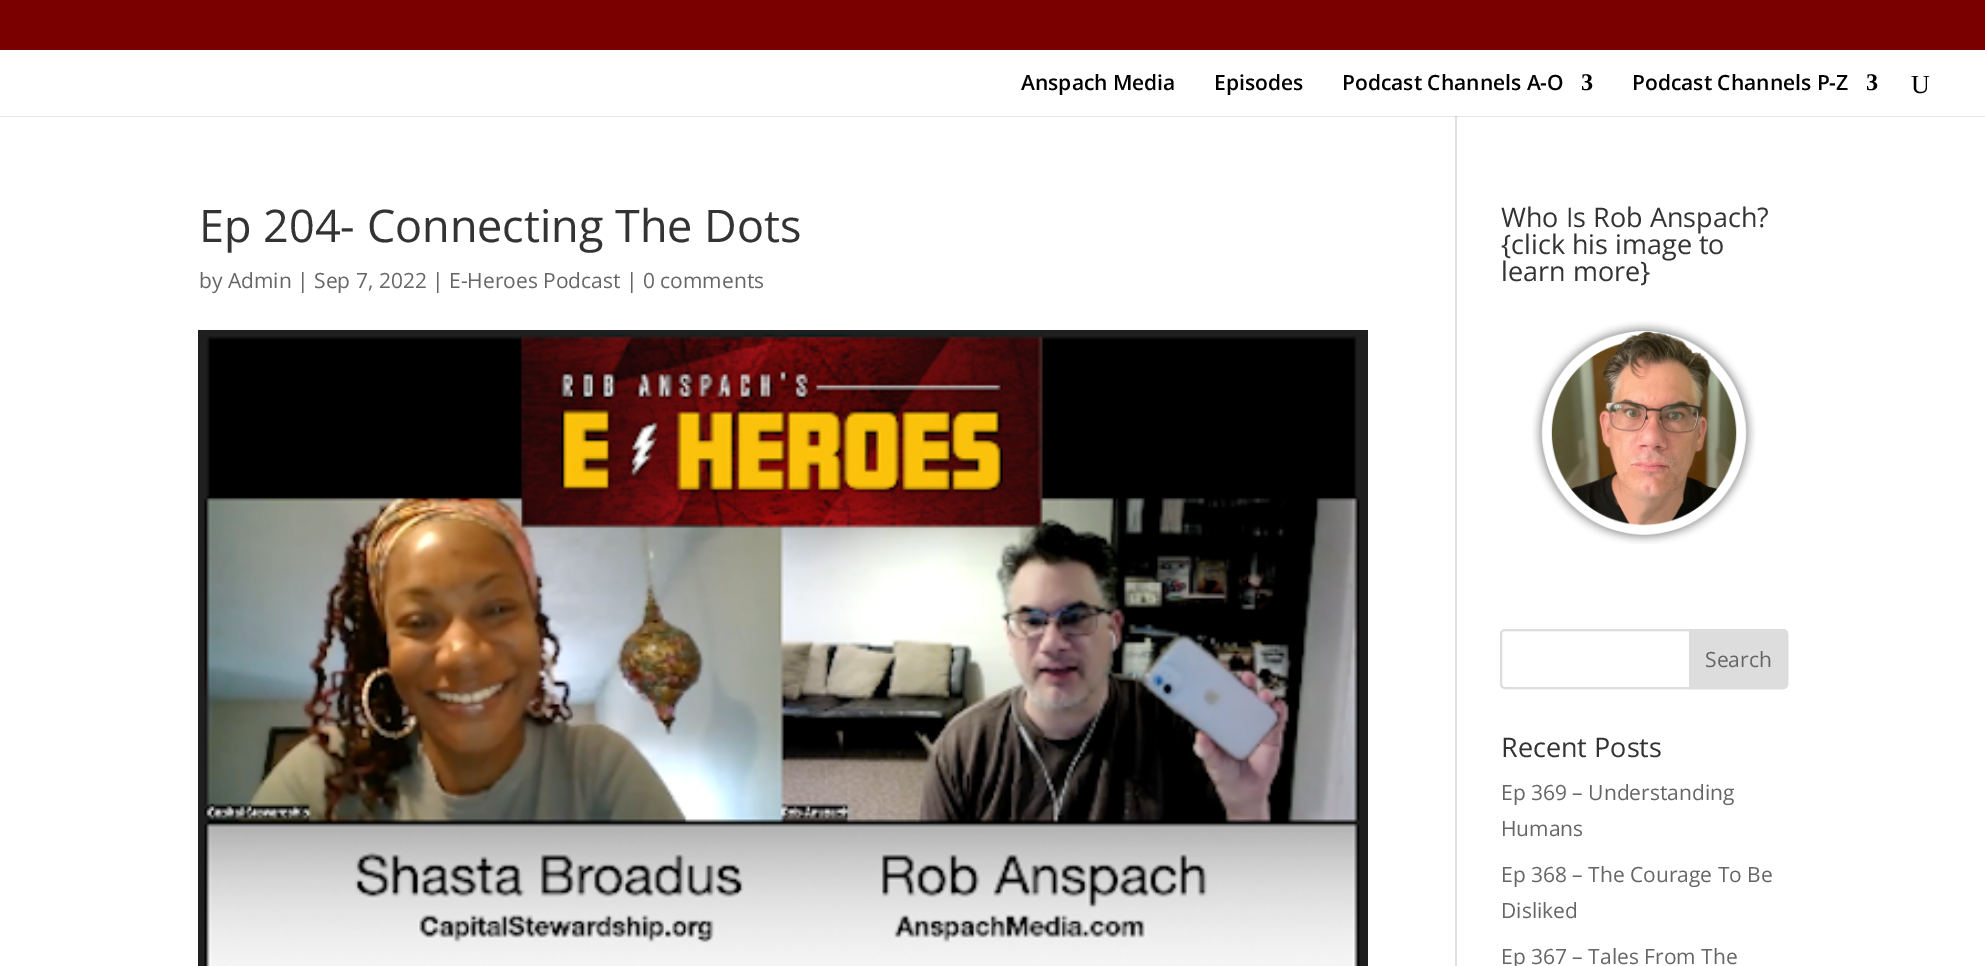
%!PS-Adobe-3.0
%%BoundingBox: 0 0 1985 966
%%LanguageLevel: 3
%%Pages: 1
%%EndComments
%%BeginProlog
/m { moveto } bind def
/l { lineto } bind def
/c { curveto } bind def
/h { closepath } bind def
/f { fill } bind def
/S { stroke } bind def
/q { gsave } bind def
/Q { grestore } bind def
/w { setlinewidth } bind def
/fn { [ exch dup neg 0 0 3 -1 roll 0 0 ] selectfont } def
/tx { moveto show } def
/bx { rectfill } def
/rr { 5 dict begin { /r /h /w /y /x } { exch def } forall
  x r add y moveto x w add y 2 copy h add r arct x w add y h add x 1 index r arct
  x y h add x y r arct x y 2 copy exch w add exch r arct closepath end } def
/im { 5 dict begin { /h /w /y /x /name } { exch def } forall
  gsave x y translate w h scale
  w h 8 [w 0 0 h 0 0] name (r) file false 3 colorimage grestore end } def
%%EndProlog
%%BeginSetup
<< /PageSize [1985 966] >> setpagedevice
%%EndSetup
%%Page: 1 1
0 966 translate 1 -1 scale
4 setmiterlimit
1 setgray
0 0 1985 966 bx
0.902 setgray
0 116 1985 1 bx
0.478 0 0 setrgbcolor
0 0 1985 50 bx
/OpenSans-SemiBold 21 fn
0 setgray
(Anspach Media) 1021 90 tx
(Episodes) 1214 90 tx
(Podcast Channels A-O) 1342 90 tx
/LiberationSerif-Bold 24 fn
(3) 1581 90 tx
/OpenSans-SemiBold 21 fn
(Podcast Channels P-Z) 1632 90 tx
/LiberationSerif-Bold 24 fn
(3) 1866 90 tx
/LiberationSerif-Regular 26 fn
(U) 1911 93 tx
0.886 setgray
1455 116 2 850 bx
0.796 setgray
1455 116 2 1 bx
/OpenSans-Regular 45 fn
0.2 setgray
(Ep 204- Connecting The Dots) 199 242 tx
/OpenSans-Regular 21 fn
0.4 setgray
(by Admin | Sep 7, 2022 | E-Heroes Podcast | 0 comments) 199 288 tx
(image0.raw) 198 330 1170 636 im
/OpenSans-Regular 27 fn
0.2 setgray
(Who Is Rob Anspach?) 1501 227 tx
({click his image to) 1501 254 tx
(learn more}) 1501 281 tx
(image1.raw) 1532 321 224 223 im
0.867 setgray
2 w
1501 630 286 58 4 rr S
1690 630 m 1783 630 l 1785 630 1787 632 1787 634 c 1787 684 l 1787 686 1785 688 1783 688 c 1690 688 l h q f Q
S
/OpenSans-Regular 21 fn
0.4 setgray
(Search) 1705 667 tx
/OpenSans-Regular 27 fn
0.2 setgray
(Recent Posts) 1501 757 tx
/OpenSans-Regular 21 fn
0.4 setgray
(Ep 369 – Understanding) 1501 800 tx
(Humans) 1501 836 tx
(Ep 368 – The Courage To Be) 1501 882 tx
(Disliked) 1501 918 tx
(Ep 367 – Tales From The) 1501 964 tx
showpage
%%EOF
